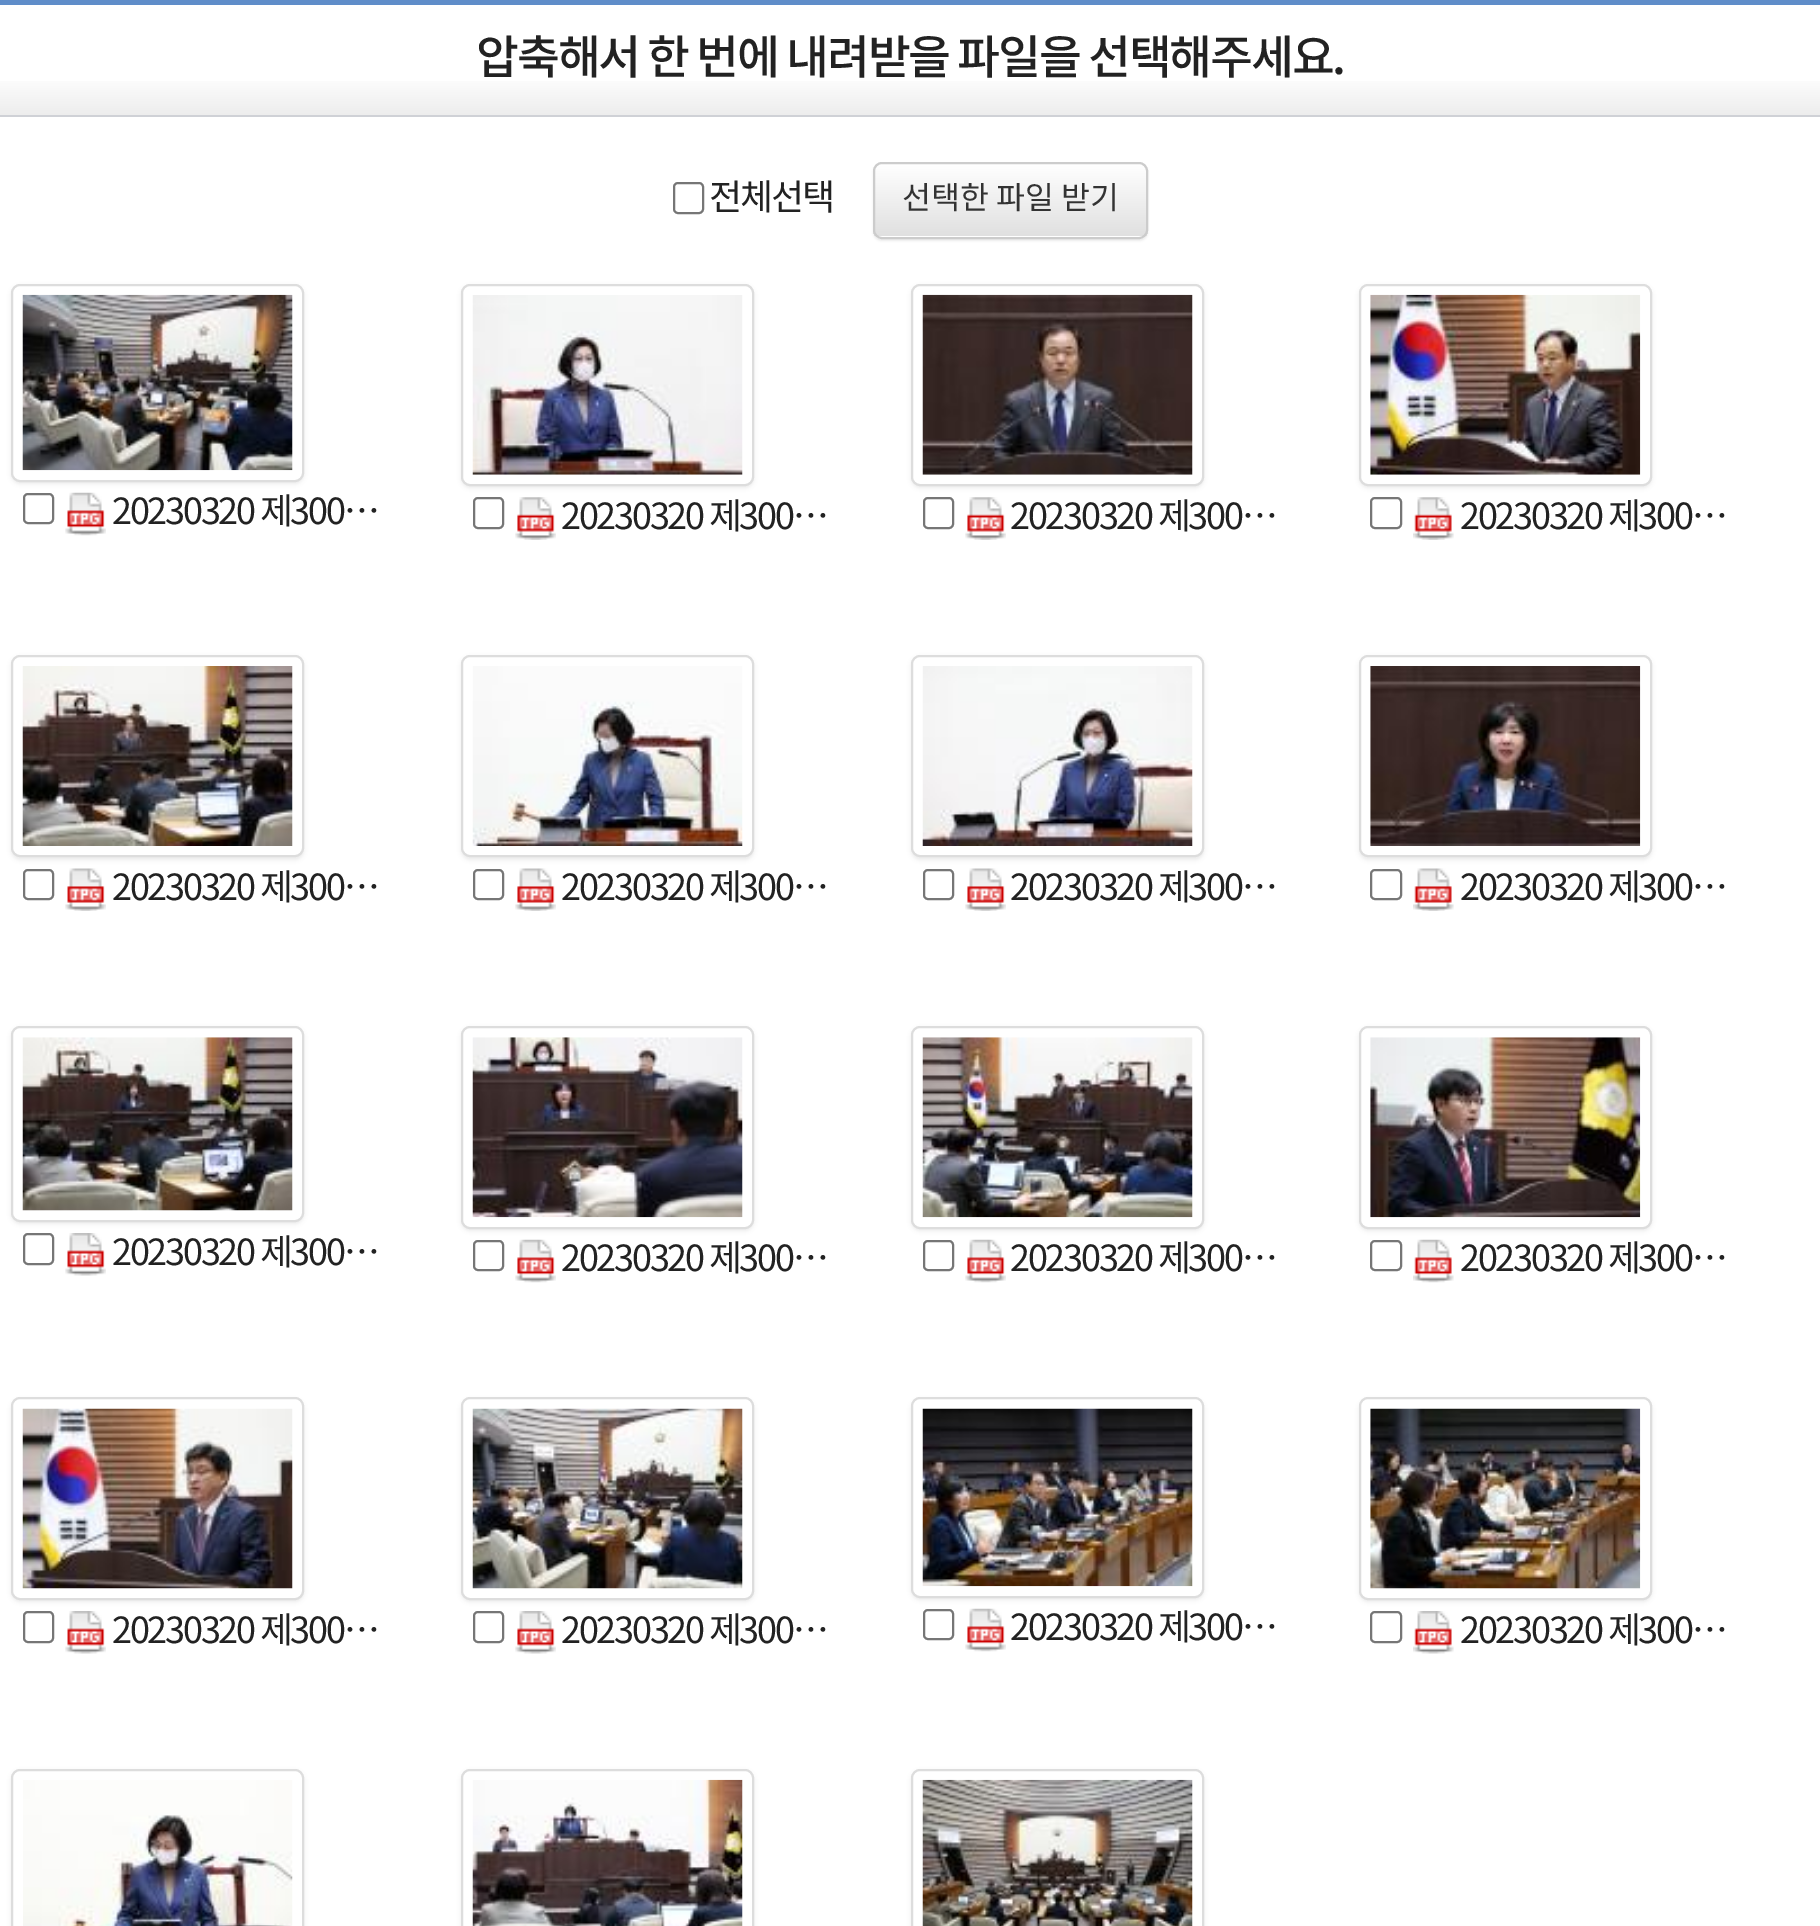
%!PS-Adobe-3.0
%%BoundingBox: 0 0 1820 1926
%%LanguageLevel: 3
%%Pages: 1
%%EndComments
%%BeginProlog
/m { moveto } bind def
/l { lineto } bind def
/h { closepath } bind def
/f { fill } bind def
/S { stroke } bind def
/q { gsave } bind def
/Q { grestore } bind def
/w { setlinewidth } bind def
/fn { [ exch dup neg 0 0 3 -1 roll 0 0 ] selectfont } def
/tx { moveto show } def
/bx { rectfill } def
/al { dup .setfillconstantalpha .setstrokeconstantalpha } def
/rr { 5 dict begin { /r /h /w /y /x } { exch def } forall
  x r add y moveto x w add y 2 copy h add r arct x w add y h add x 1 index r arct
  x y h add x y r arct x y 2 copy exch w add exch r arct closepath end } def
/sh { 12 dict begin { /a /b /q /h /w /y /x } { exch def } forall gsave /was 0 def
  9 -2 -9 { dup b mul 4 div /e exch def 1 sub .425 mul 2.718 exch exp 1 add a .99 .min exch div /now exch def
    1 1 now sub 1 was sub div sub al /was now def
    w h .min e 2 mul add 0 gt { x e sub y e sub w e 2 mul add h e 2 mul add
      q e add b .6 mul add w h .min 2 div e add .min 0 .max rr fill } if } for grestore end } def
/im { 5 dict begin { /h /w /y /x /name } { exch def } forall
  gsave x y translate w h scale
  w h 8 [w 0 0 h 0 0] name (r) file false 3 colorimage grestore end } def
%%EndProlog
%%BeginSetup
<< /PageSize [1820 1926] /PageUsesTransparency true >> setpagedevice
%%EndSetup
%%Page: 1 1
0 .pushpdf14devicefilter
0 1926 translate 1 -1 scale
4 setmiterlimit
1 setgray
0 0 1820 1926 bx
0.373 0.553 0.788 setrgbcolor
0 0 1820 5 bx
q 0 81 m 1820 81 l 1820 115 l 0 115 l h clip newpath
<< /ShadingType 2 /ColorSpace /DeviceRGB /Coords [910 2.2 910 115] /Extend [true true] /Function << /FunctionType 3 /Domain [0 1] /Functions [<< /FunctionType 2 /Domain [0 1] /C0 [1 1 1] /C1 [1 1 1] /N 1 >> << /FunctionType 2 /Domain [0 1] /C0 [1 1 1] /C1 [0.929 0.929 0.929] /N 1 >>] /Bounds [0.65] /Encode [0 1 0 1] >> >> shfill Q
0.812 0.82 0.839 setrgbcolor
0 115 1820 2 bx
/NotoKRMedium-Medium 46.75 fn
0.133 setgray
476 74 m -2.25 0 (압축해서 한 번에 내려받을 파일을 선택해주세요.) ashow
0.463 setgray
2 w
674 183 29 30 4 rr S
/NotoSansKR-Regular 36 fn
0.133 setgray
709 210 m -2.25 0 (전체선택) ashow
0 setgray
873 164 275 77 9 1 0.07 sh
1 setgray
873 162 275 77 9 rr f
q
873 162 275 77 9 rr clip newpath
q 873 164 m 1148 164 l 1148 236 l 873 236 l h clip newpath
<< /ShadingType 2 /ColorSpace /DeviceRGB /Coords [1010 164 1010 236] /Extend [true true] /Function << /FunctionType 2 /Domain [0 1] /C0 [1 1 1] /C1 [0.878 0.878 0.878] /N 1 >> >> shfill Q
Q
0.8 setgray
874 163 273 75 8 rr S
/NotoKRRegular-Regular 31.5 fn
0.2 setgray
(선택한 파일 받기) 902 209 tx
0 setgray
11 286 293 198 9 2 0.07 sh
1 setgray
12 285 291 196 8 rr q f Q
0.867 setgray
S
(image0.raw) 22 294 271 177 im
0.463 setgray
24 494 29 29 4 rr S
(image1.raw) 65 492 41 44 im
/NotoSansKR-Regular 36 fn
0.133 setgray
112 524 m -2.25 0 (20230320 제300…) ashow
0 setgray
461 286 293 202 9 2 0.07 sh
1 setgray
462 285 291 200 8 rr q f Q
0.867 setgray
S
(image2.raw) 472 295 271 180 im
0.463 setgray
474 498 29 30 4 rr S
(image3.raw) 515 497 41 43 im
0.133 setgray
561 529 m -2.25 0 (20230320 제300…) ashow
0 setgray
911 286 293 202 9 2 0.07 sh
1 setgray
912 285 291 200 8 rr q f Q
0.867 setgray
S
(image4.raw) 922 294 271 181 im
0.463 setgray
924 498 29 30 4 rr S
(image3.raw) 965 497 41 43 im
0.133 setgray
1010 529 m -2.25 0 (20230320 제300…) ashow
0 setgray
1359 286 293 202 9 2 0.07 sh
1 setgray
1360 285 291 200 8 rr q f Q
0.867 setgray
S
(image5.raw) 1370 294 271 181 im
0.463 setgray
1371 498 30 30 4 rr S
(image6.raw) 1413 497 41 43 im
0.133 setgray
1460 529 m -2.25 0 (20230320 제300…) ashow
0 setgray
11 657 293 203 9 2 0.07 sh
1 setgray
12 656 291 200 8 rr q f Q
0.867 setgray
S
(image7.raw) 22 666 271 180 im
0.463 setgray
24 870 29 29 4 rr S
(image8.raw) 65 868 41 43 im
0.133 setgray
112 900 m -2.25 0 (20230320 제300…) ashow
0 setgray
461 657 293 203 9 2 0.07 sh
1 setgray
462 656 291 200 8 rr q f Q
0.867 setgray
S
(image9.raw) 472 666 271 180 im
0.463 setgray
474 870 29 29 4 rr S
(image10.raw) 515 868 41 43 im
0.133 setgray
561 900 m -2.25 0 (20230320 제300…) ashow
0 setgray
911 657 293 203 9 2 0.07 sh
1 setgray
912 656 291 200 8 rr q f Q
0.867 setgray
S
(image11.raw) 922 666 271 180 im
0.463 setgray
924 870 29 29 4 rr S
(image10.raw) 965 868 41 43 im
0.133 setgray
1010 900 m -2.25 0 (20230320 제300…) ashow
0 setgray
1359 657 293 203 9 2 0.07 sh
1 setgray
1360 656 291 200 8 rr q f Q
0.867 setgray
S
(image12.raw) 1370 666 271 180 im
0.463 setgray
1371 870 30 29 4 rr S
(image13.raw) 1413 868 41 43 im
0.133 setgray
1460 900 m -2.25 0 (20230320 제300…) ashow
0 setgray
11 1028 293 196 9 2 0.07 sh
1 setgray
12 1027 291 194 8 rr q f Q
0.867 setgray
S
(image14.raw) 22 1037 271 174 im
0.463 setgray
24 1234 29 30 4 rr S
(image15.raw) 65 1233 41 43 im
0.133 setgray
112 1265 m -2.25 0 (20230320 제300…) ashow
0 setgray
461 1028 293 203 9 2 0.07 sh
1 setgray
462 1027 291 201 8 rr q f Q
0.867 setgray
S
(image16.raw) 472 1037 271 181 im
0.463 setgray
474 1241 29 29 4 rr S
(image17.raw) 515 1239 41 44 im
0.133 setgray
561 1271 m -2.25 0 (20230320 제300…) ashow
0 setgray
911 1028 293 203 9 2 0.07 sh
1 setgray
912 1027 291 201 8 rr q f Q
0.867 setgray
S
(image18.raw) 922 1037 271 181 im
0.463 setgray
924 1241 29 29 4 rr S
(image17.raw) 965 1239 41 44 im
0.133 setgray
1010 1271 m -2.25 0 (20230320 제300…) ashow
0 setgray
1359 1028 293 203 9 2 0.07 sh
1 setgray
1360 1027 291 201 8 rr q f Q
0.867 setgray
S
(image19.raw) 1370 1037 271 181 im
0.463 setgray
1371 1241 30 29 4 rr S
(image20.raw) 1413 1239 41 44 im
0.133 setgray
1460 1271 m -2.25 0 (20230320 제300…) ashow
0 setgray
11 1400 293 202 9 2 0.07 sh
1 setgray
12 1398 291 201 8 rr q f Q
0.867 setgray
S
(image21.raw) 22 1408 271 181 im
0.463 setgray
24 1612 29 30 4 rr S
(image15.raw) 65 1611 41 43 im
0.133 setgray
112 1643 m -2.25 0 (20230320 제300…) ashow
0 setgray
461 1400 293 202 9 2 0.07 sh
1 setgray
462 1398 291 201 8 rr q f Q
0.867 setgray
S
(image22.raw) 472 1408 271 181 im
0.463 setgray
474 1612 29 30 4 rr S
(image23.raw) 515 1611 41 43 im
0.133 setgray
561 1643 m -2.25 0 (20230320 제300…) ashow
0 setgray
911 1400 293 200 9 2 0.07 sh
1 setgray
912 1398 291 199 8 rr q f Q
0.867 setgray
S
(image24.raw) 922 1408 271 179 im
0.463 setgray
924 1610 29 29 4 rr S
(image17.raw) 965 1608 41 44 im
0.133 setgray
1010 1640 m -2.25 0 (20230320 제300…) ashow
0 setgray
1359 1400 293 202 9 2 0.07 sh
1 setgray
1360 1398 291 201 8 rr q f Q
0.867 setgray
S
(image25.raw) 1370 1408 271 181 im
0.463 setgray
1371 1612 30 30 4 rr S
(image26.raw) 1413 1611 41 43 im
0.133 setgray
1460 1643 m -2.25 0 (20230320 제300…) ashow
0 setgray
11 1771 293 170 9 2 0.07 sh
1 setgray
12 1770 291 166 8 rr q f Q
0.867 setgray
S
(image27.raw) 23 1780 270 146 im
0 setgray
461 1771 293 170 9 2 0.07 sh
1 setgray
462 1770 291 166 8 rr q f Q
0.867 setgray
S
(image28.raw) 472 1779 271 147 im
0 setgray
911 1771 293 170 9 2 0.07 sh
1 setgray
912 1770 291 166 8 rr q f Q
0.867 setgray
S
(image29.raw) 922 1779 271 147 im
.poppdf14devicefilter showpage
%%EOF
